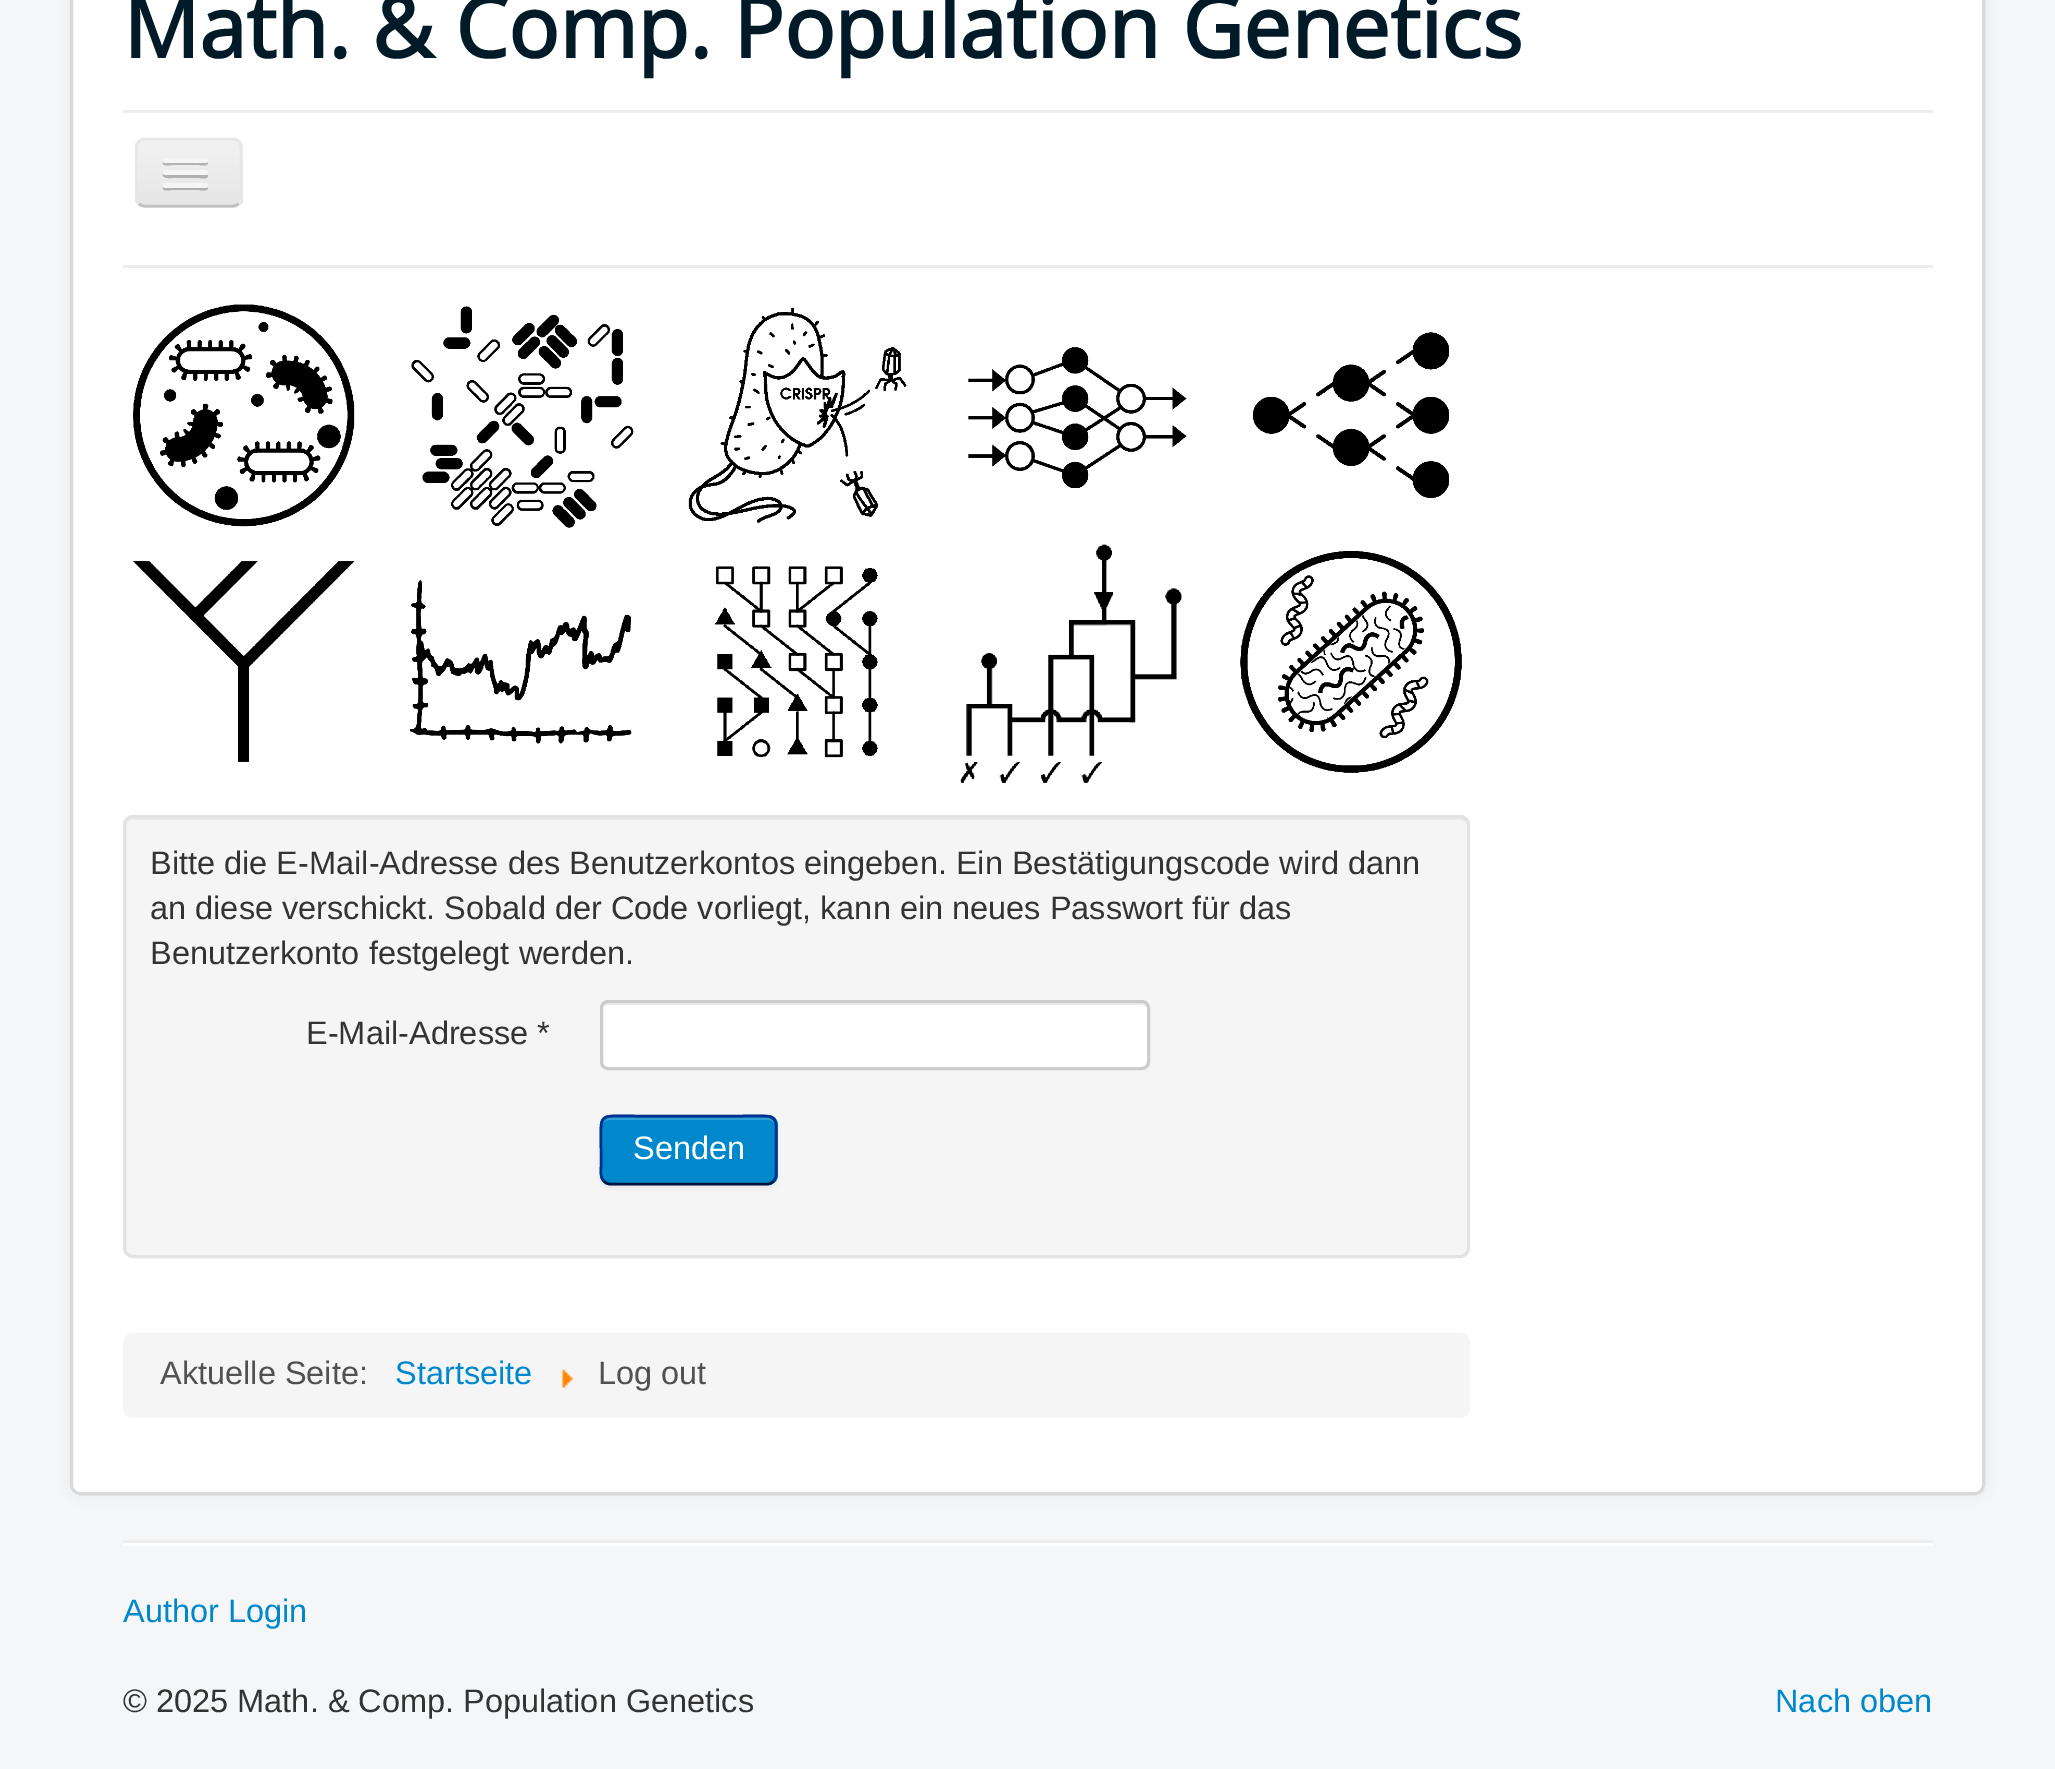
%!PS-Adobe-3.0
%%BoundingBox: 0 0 2055 1769
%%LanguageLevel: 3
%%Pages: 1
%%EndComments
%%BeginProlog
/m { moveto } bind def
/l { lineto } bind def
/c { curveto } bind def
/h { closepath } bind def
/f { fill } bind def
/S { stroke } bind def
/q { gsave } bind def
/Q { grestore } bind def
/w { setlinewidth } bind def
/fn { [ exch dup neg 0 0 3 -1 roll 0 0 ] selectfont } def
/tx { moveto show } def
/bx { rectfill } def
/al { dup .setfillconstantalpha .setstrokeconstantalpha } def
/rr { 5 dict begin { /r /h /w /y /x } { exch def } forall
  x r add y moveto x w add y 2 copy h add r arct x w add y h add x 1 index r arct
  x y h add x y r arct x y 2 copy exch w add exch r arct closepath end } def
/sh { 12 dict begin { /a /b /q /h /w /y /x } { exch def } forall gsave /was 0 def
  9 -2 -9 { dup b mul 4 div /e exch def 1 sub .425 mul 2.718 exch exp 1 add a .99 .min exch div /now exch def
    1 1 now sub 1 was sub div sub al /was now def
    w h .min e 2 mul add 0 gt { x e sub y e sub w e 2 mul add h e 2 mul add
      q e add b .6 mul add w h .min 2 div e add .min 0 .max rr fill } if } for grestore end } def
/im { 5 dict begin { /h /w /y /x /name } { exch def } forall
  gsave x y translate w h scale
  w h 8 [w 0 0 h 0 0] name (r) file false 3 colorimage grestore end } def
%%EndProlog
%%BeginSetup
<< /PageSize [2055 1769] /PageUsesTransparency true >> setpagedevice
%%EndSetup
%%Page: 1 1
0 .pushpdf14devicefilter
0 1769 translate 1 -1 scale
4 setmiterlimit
0.957 0.965 0.969 setrgbcolor
0 0 2055 1769 bx
0 setgray
70 -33 1915 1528 10 7.5 0.05 sh
1 setgray
70 -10 1915 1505 10 rr f
0.15 al
0 setgray
3 w
71.5 -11.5 1912 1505 8.5 rr S
/OpenSans-Bold 84.4 fn
1 al
0 0.102 0.153 setrgbcolor
(Math. & Comp. Population Genetics) 123 58 tx
0.925 setgray
123 110 1810 3 bx
123 265 1810 3 bx
0.929 setgray
135 138 108 70 10 rr f
q
135 138 108 70 10 rr clip newpath
q 135 140 m 243 140 l 243 205 l 135 205 l h clip newpath
<< /ShadingType 2 /ColorSpace /DeviceRGB /Coords [189 140 189 205] /Extend [true true] /Function << /FunctionType 2 /Domain [0 1] /C0 [0.949 0.949 0.949] /C1 [0.902 0.902 0.902] /N 1 >> >> shfill Q
Q
0.749 setgray
2.5 w
238.5 203.5 m 237 205.5 235 206 232.5 206 c 145 206 l 142.5 206 140.5 205.5 139 203.5 c S
0.902 setgray
139 203.5 m 137 202 136 200 136 197.5 c 136 147.5 l 136 145 137 143 139 141.5 c 140.5 139.5 142.5 139 145 139 c 232.5 139 l 235 139 237 139.5 238.5 141.5 c 240.5 143 241 145 241 147.5 c 241 197.5 l 241 200 240.5 202 238.5 203.5 c S
0.698 setgray
163 162 m 161 167 171 165 172 165 c 199 165 l 200 165 207 167 208 163 c 207 161 l 205 162 l 165 162 l h f
0.961 setgray
163 158 45 5 2.5 rr f
0.69 setgray
163 174 m 161 179 172 178 172 178 c 199 178 l 200 178 207 180 208 176 c 207 174 l 205 175 l 202 175 165 176 163 174 c h f
0.961 setgray
163 170 45 5 2.5 rr f
0.686 setgray
163 187 m 161 192 171 190 172 190 c 199 190 l 200 190 207 192 208 188 c 207 186 l 205 187 l 165 187 l h f
0.961 setgray
163 183 45 5 2.5 rr f
(image0.raw) 133 304 1329 479 im
123 815 1347 443 10 rr f
0.914 setgray
132 820 m 1460 820 l 1464 820 1468 823 1468 828 c 1468 826 l 1468 822 1464 818 1460 818 c 133 818 l 129 818 125 822 125 826 c 125 828 l 125 823 128 820 132 820 c h f
0.89 setgray
3 w
124.5 816.5 1344 440 8.5 rr S
/LiberationSans-Regular 32.5 fn
0.2 setgray
(Bitte die E-Mail-Adresse des Benutzerkontos eingeben. Ein Bestätigungscode wird dann) 150 874 tx
(an diese verschickt. Sobald der Code vorliegt, kann ein neues Passwort für das) 150 919 tx
(Benutzerkonto festgelegt werden.) 150 964 tx
(E-Mail-Adresse *) 306 1044 tx
1 setgray
600 1000 550 70 8 rr f
0.925 setgray
608 1005 m 1142 1005 l 1145 1005 1148 1007 1148 1010 c 1148 1008 l 1148 1005 1146 1003 1143 1003 c 608 1003 l 606 1003 603 1005 603 1007 c 604 1006 606 1005 608 1005 c h f
0.8 setgray
601.5 1001.5 547 67 6.5 rr S
0 setgray
600 1118 178 70 10 2.5 0.05 sh
0 0.533 0.8 setrgbcolor
600 1115 178 70 10 rr f
0.2 0.627 0.839 setrgbcolor
610 1120 m 768 1120 l 772 1120 775 1123 775 1128 c 775 1126 l 775 1122 771 1118 767 1118 c 611 1118 l 608 1118 605 1120 603 1123 c 605 1121 608 1120 610 1120 c h f
0 0.086 0.255 setrgbcolor
2.5 w
773.5 1181 m 772 1183 770 1184 767.5 1184 c 610 1184 l 607.5 1184 605.5 1183 604 1181 c S
0 0.184 0.553 setrgbcolor
604 1181 m 600 1177.5 601 1171.5 601 1166.5 c 601 1150 l 601 1111.5 596.5 1116 636 1116 c 741 1116 l 781 1116 776 1111.5 776 1150 c 776 1166.5 l 776 1171.5 777.5 1177.5 773.5 1181 c S
1 setgray
(Senden) 633 1159 tx
0.961 setgray
123 1333 1347 85 10 rr f
0.318 setgray
(Aktuelle Seite:) 160 1384 tx
0 0.533 0.8 setrgbcolor
(Startseite) 395 1384 tx
(image1.raw) 561 1369 13 19 im
0.318 setgray
(Log out) 598 1384 tx
0.933 setgray
123 1540 1810 3 bx
1 setgray
123 1543 1810 3 bx
0 0.533 0.8 setrgbcolor
(Author Login) 123 1622 tx
0.2 setgray
(© 2025 Math. & Comp. Population Genetics) 123 1712 tx
0 0.533 0.8 setrgbcolor
(Nach oben) 1775 1712 tx
.poppdf14devicefilter showpage
%%EOF
